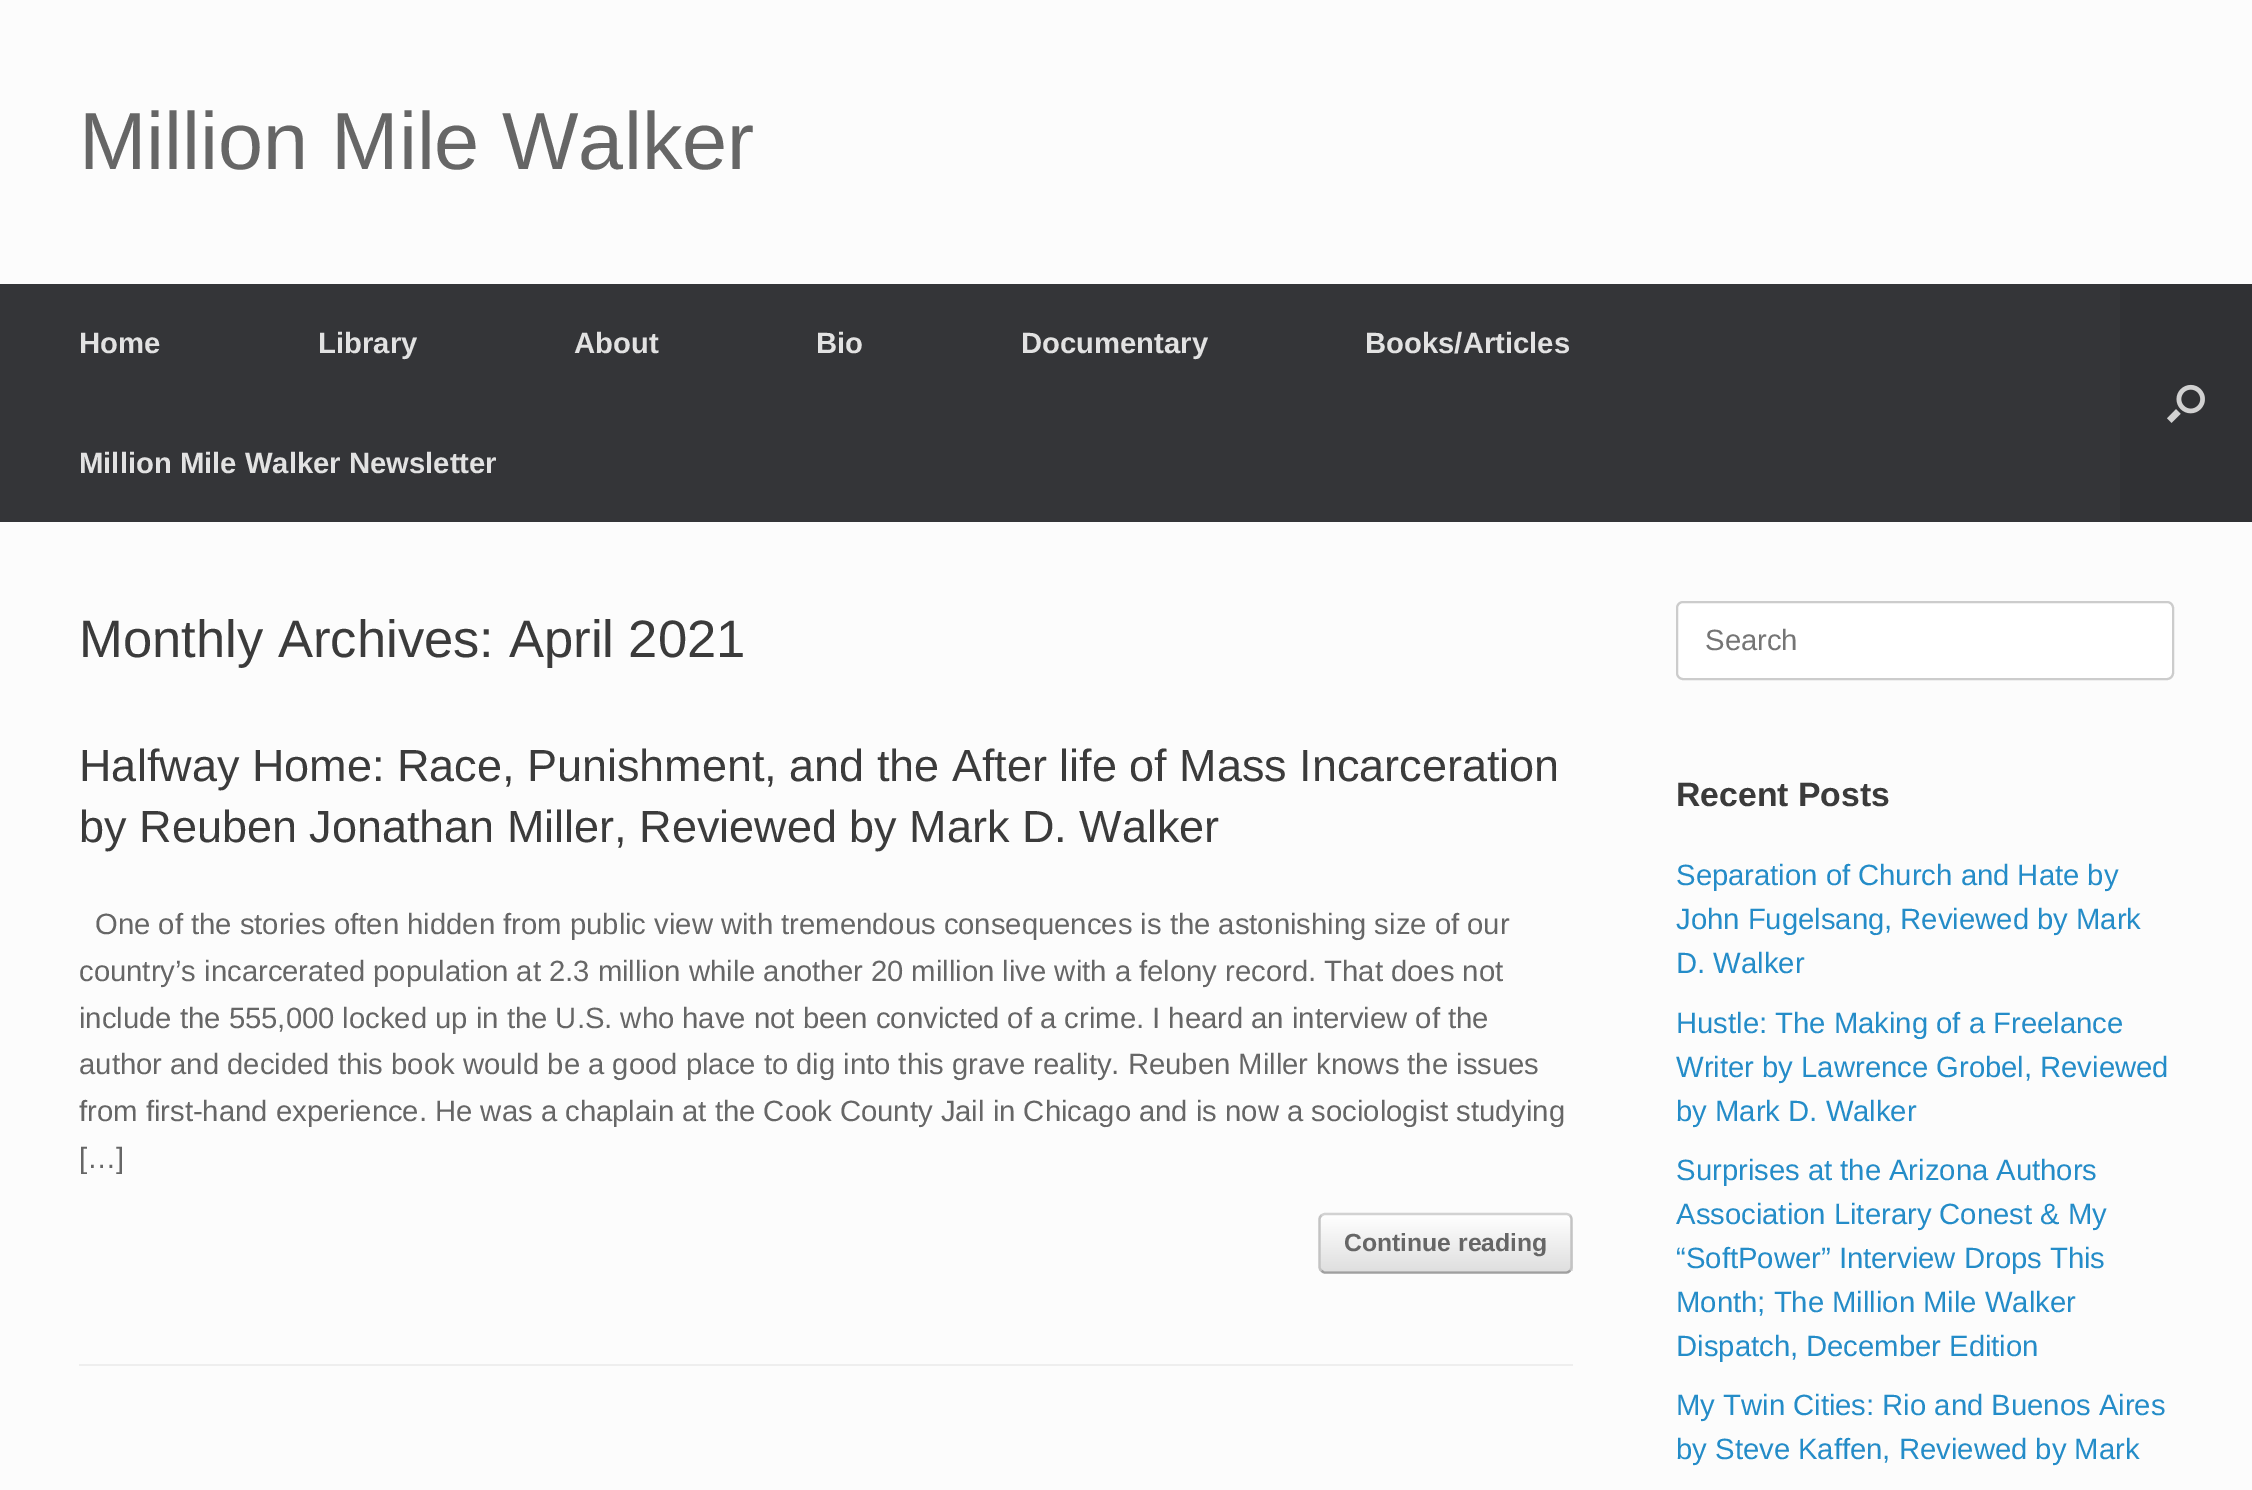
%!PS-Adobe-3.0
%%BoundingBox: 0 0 2252 1490
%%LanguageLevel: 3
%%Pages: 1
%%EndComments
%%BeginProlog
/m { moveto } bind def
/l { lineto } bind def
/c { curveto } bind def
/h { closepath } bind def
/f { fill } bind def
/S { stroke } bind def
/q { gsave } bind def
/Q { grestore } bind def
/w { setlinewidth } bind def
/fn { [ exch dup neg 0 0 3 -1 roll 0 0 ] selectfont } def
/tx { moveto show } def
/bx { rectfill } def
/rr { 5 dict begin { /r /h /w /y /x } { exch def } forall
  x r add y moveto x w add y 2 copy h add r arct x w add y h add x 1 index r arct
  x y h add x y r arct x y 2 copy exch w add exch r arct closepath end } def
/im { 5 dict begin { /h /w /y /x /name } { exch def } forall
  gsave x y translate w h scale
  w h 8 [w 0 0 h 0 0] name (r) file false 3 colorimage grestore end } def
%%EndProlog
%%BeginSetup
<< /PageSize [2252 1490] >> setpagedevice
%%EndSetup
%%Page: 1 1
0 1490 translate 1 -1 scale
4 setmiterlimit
0.988 setgray
0 0 2252 1490 bx
/LiberationSans-Regular 81 fn
0.4 setgray
(Million Mile Walker) 79 169 tx
0.204 0.208 0.22 setrgbcolor
0 284 2120 238 bx
/LiberationSans-Bold 29.25 fn
0.886 setgray
(Home) 79 353 tx
(Library) 318 353 tx
(About) 574 353 tx
(Bio) 816 353 tx
(Documentary) 1021 353 tx
(Books/Articles) 1365 353 tx
(Million Mile Walker Newsletter) 79 473 tx
0.188 0.192 0.204 setrgbcolor
2120 284 132 238 bx
(image0.raw) 2167 384 38 39 im
/LiberationSans-Regular 52.6 fn
0.231 setgray
(Monthly Archives: April 2021) 79 657 tx
0.933 setgray
79 1364 1494 2 bx
/LiberationSans-Regular 45 fn
0.231 setgray
(Halfway Home: Race, Punishment, and the After life of Mass Incarceration) 79 781 tx
(by Reuben Jonathan Miller, Reviewed by Mark D. Walker) 79 842 tx
/LiberationSans-Regular 29.25 fn
0.4 setgray
(One of the stories often hidden from public view with tremendous consequences is the astonishing size of our) 95 934 tx
(country’s incarcerated population at 2.3 million while another 20 million live with a felony record. That does not) 79 981 tx
(include the 555,000 locked up in the U.S. who have not been convicted of a crime. I heard an interview of the) 79 1028 tx
(author and decided this book would be a good place to dig into this grave reality. Reuben Miller knows the issues) 79 1074 tx
(from first-hand experience. He was a chaplain at the Cook County Jail in Chicago and is now a sociologist studying) 79 1121 tx
([…]) 79 1168 tx
q
1319 1213 254 61 7 rr clip newpath
q 1319 1215 m 1573 1215 l 1573 1271 l 1319 1271 l h clip newpath
<< /ShadingType 2 /ColorSpace /DeviceRGB /Coords [1321 1271 1321 1215] /Extend [true true] /Function << /FunctionType 2 /Domain [0 1] /C0 [0.875 0.875 0.875] /C1 [1 1 1] /N 1 >> >> shfill Q
q 1319 1271 m 1573 1271 l 1573 1274 l 1319 1274 l h clip newpath
<< /ShadingType 2 /ColorSpace /DeviceRGB /Coords [1321 1328 1321 1271] /Extend [true true] /Function << /FunctionType 2 /Domain [0 1] /C0 [0.875 0.875 0.875] /C1 [1 1 1] /N 1 >> >> shfill Q
Q
0.824 setgray
2.2 w
1321.5 1215.5 m 1322.5 1214.5 1324 1214 1325 1214 c 1566 1214 l 1567.5 1214 1569 1214.5 1570 1215.5 c S
0.765 setgray
1570 1215.5 m 1571 1216.5 1571.5 1218 1571.5 1219.5 c 1571.5 1267 l 1571.5 1268 1571 1269.5 1570 1270.5 c S
0.624 setgray
1570 1270.5 m 1569 1272 1567.5 1272.5 1566 1272.5 c 1325 1272.5 l 1324 1272.5 1322.5 1272 1321.5 1270.5 c S
0.765 setgray
1321.5 1270.5 m 1320 1269.5 1319.5 1268 1319.5 1267 c 1319.5 1219.5 l 1319.5 1218 1320 1216.5 1321.5 1215.5 c S
/LiberationSans-Bold 24.75 fn
0.4 setgray
(Continue reading) 1344 1251 tx
1 setgray
1677 602 496 77 6 rr q f Q
0.8 setgray
2 w
S
/LiberationSans-Regular 29.25 fn
0.459 setgray
(Search) 1705 650 tx
/LiberationSans-Bold 33.75 fn
0.231 setgray
(Recent Posts) 1676 806 tx
/LiberationSans-Regular 29.25 fn
0.141 0.549 0.784 setrgbcolor
(Separation of Church and Hate by) 1676 885 tx
(John Fugelsang, Reviewed by Mark) 1676 929 tx
(D. Walker) 1676 973 tx
(Hustle: The Making of a Freelance) 1676 1033 tx
(Writer by Lawrence Grobel, Reviewed) 1676 1077 tx
(by Mark D. Walker) 1676 1121 tx
(Surprises at the Arizona Authors) 1676 1180 tx
(Association Literary Conest & My) 1676 1224 tx
(“SoftPower” Interview Drops This) 1676 1268 tx
(Month; The Million Mile Walker) 1676 1312 tx
(Dispatch, December Edition) 1676 1356 tx
(My Twin Cities: Rio and Buenos Aires) 1676 1415 tx
(by Steve Kaffen, Reviewed by Mark) 1676 1459 tx
showpage
%%EOF
